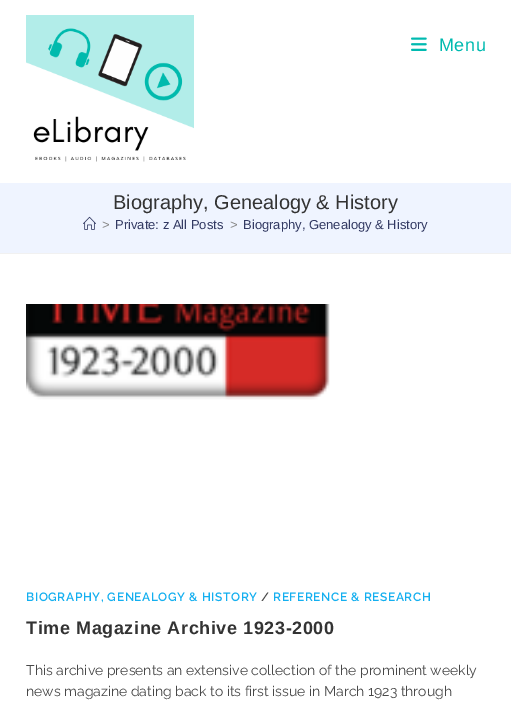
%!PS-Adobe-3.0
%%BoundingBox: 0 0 511 704
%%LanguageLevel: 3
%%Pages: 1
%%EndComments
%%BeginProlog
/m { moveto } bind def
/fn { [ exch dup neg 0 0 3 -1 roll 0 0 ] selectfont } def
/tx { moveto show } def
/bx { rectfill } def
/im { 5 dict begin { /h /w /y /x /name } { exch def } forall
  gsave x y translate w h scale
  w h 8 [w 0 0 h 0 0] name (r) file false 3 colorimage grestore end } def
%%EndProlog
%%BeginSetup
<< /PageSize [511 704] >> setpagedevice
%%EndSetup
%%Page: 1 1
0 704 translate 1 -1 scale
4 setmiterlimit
1 setgray
0 0 511 704 bx
(image0.raw) 26 15 168 147 im
(image1.raw) 411 37 16 14 im
/LiberationSans-Regular 18 fn
0 0.729 0.69 setrgbcolor
439 51 m 0.5 0 (Menu) ashow
0.937 0.957 1 setrgbcolor
0 183 511 70 bx
0.945 setgray
0 253 511 1 bx
/LiberationSans-Regular 20 fn
0.2 setgray
(Biography, Genealogy & History) 113 209 tx
(image2.raw) 83 216 13 14 im
/LiberationSans-Regular 13 fn
0.529 setgray
(>) 102 229 tx
0.2 0.227 0.388 setrgbcolor
(Private: z All Posts) 115 229 tx
0.529 setgray
(>) 230 229 tx
0.2 0.227 0.388 setrgbcolor
(Biography, Genealogy & History) 243 229 tx
(image3.raw) 26 304 304 96 im
/Raleway-SemiBold 12 fn
0.075 0.686 0.941 setrgbcolor
26 601 m 0.6 0 (BIOGRAPHY, GENEALOGY & HISTORY) ashow
0.282 setgray
261 601 m 0.6 0 (/) ashow
0.075 0.686 0.941 setrgbcolor
273 601 m 0.6 0 (REFERENCE & RESEARCH) ashow
/LiberationSans-Bold 18 fn
0.2 setgray
26 634 m 0.6 0 (Time Magazine Archive 1923-2000) ashow
/Raleway-Regular 14 fn
0.282 setgray
(This archive presents an extensive collection of the prominent weekly) 26 675 tx
(news magazine dating back to its first issue in March 1923 through) 26 696 tx
showpage
%%EOF
